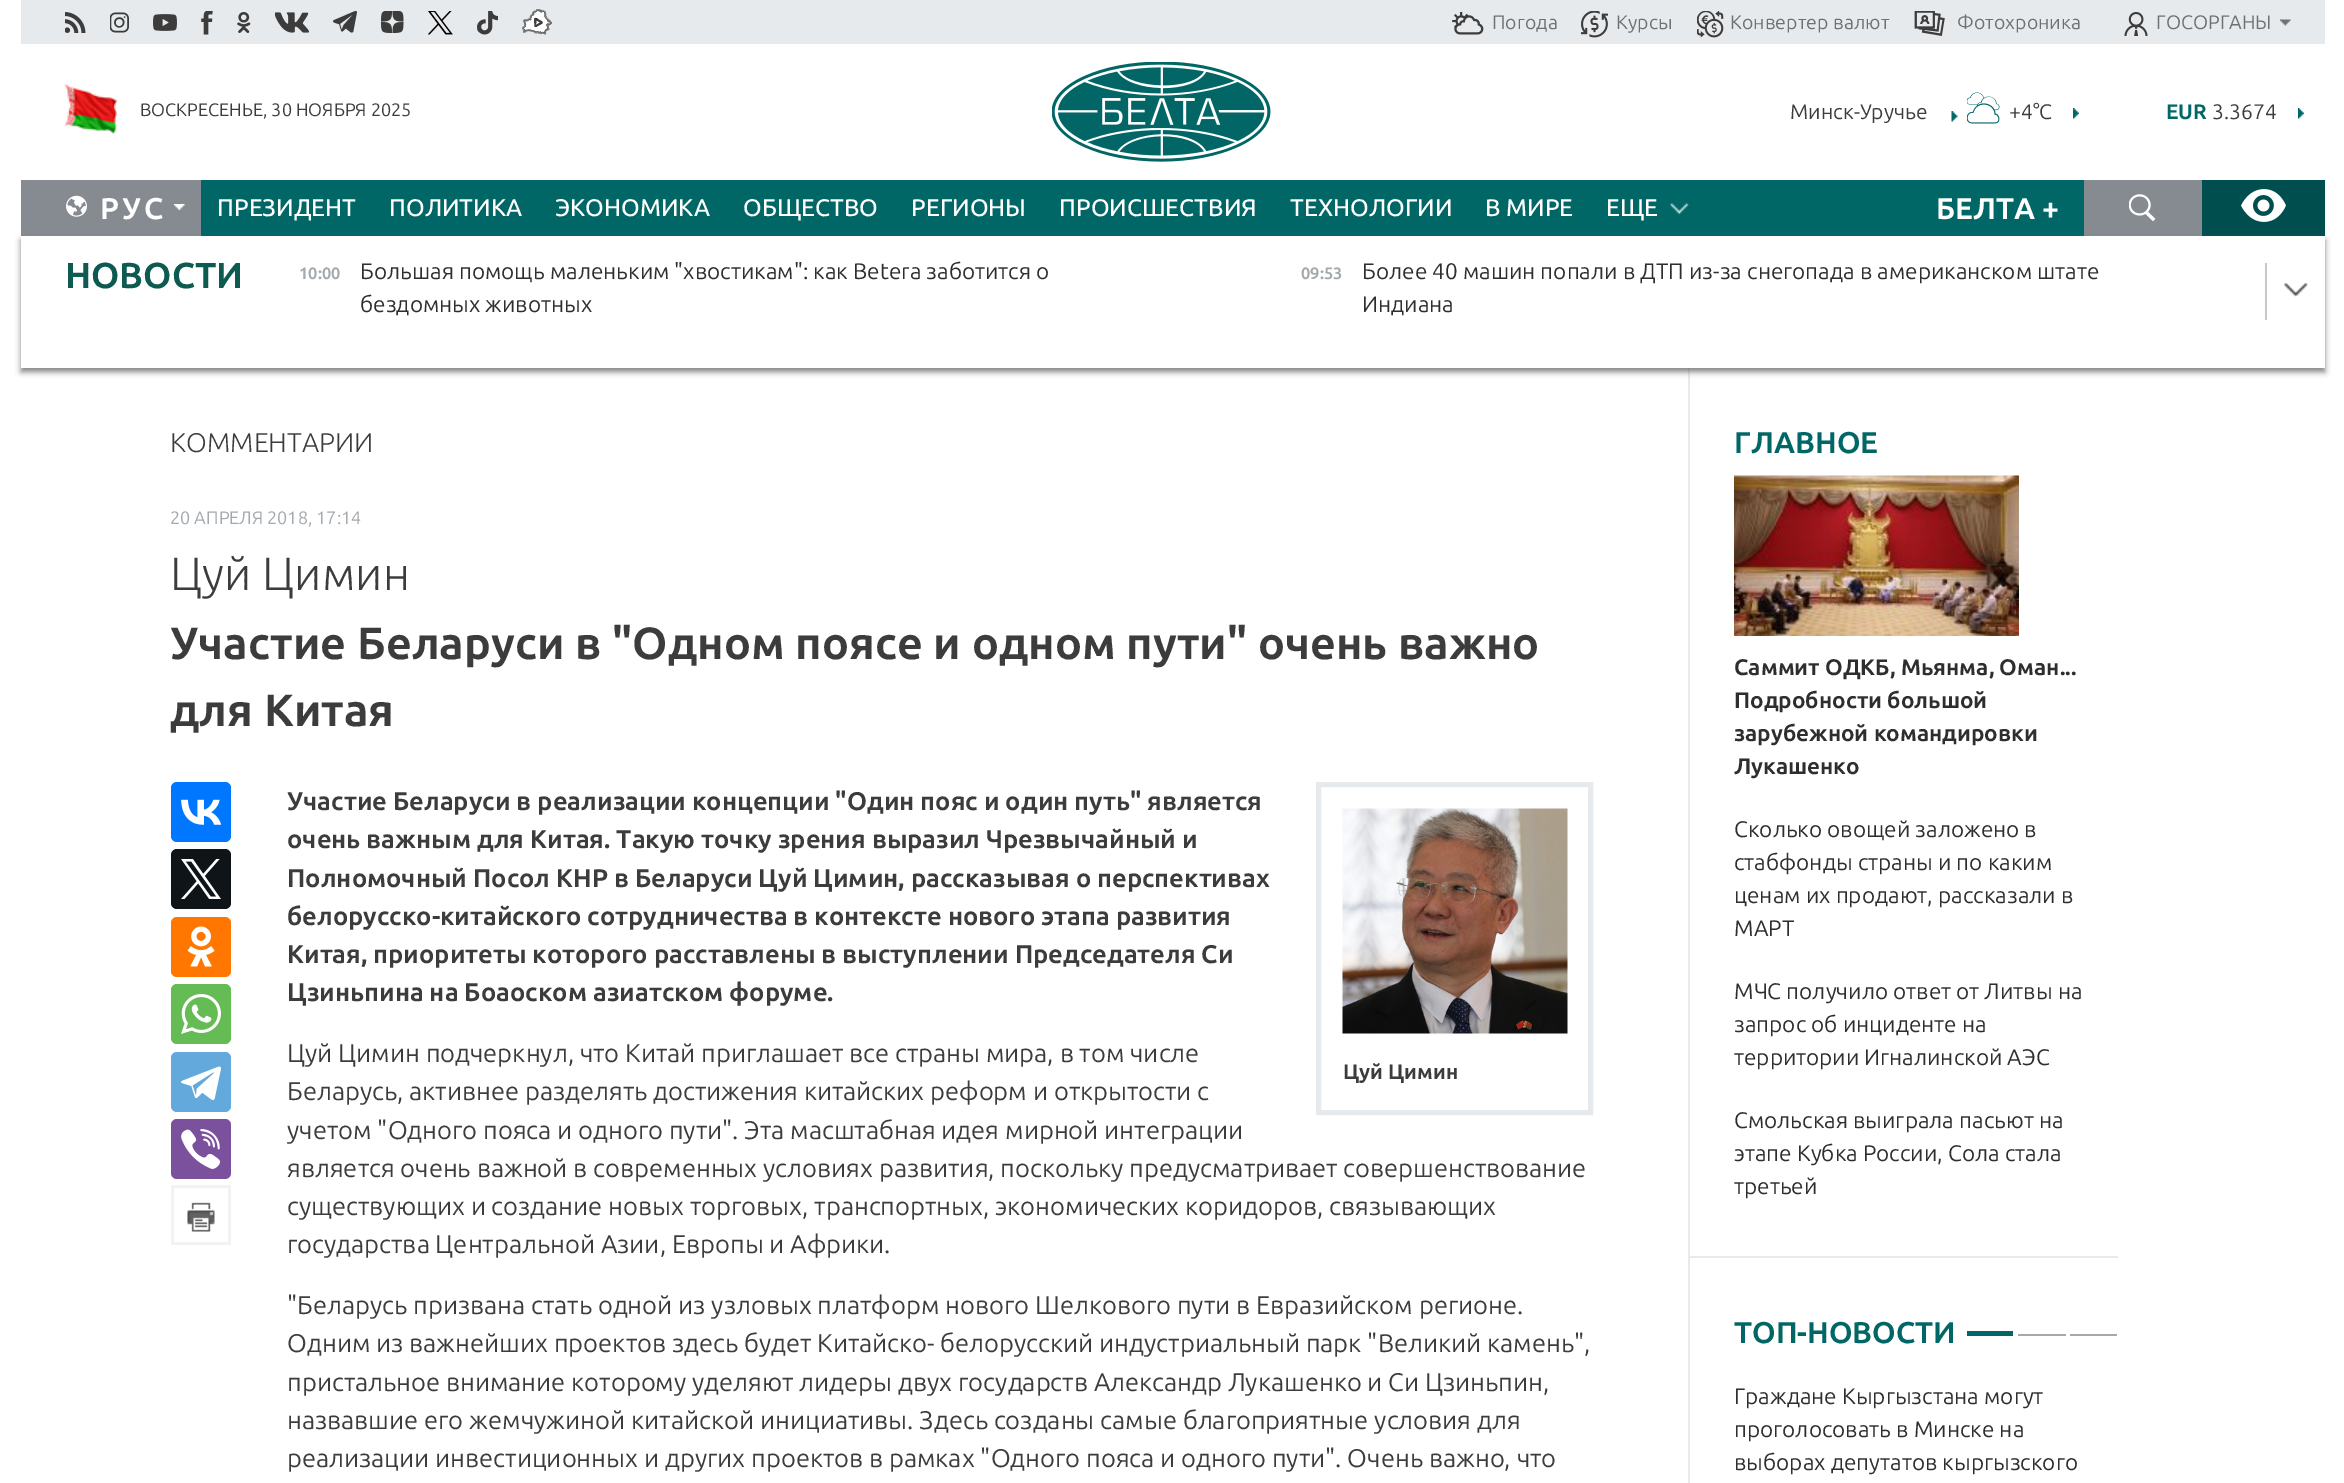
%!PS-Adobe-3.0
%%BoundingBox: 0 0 2344 1483
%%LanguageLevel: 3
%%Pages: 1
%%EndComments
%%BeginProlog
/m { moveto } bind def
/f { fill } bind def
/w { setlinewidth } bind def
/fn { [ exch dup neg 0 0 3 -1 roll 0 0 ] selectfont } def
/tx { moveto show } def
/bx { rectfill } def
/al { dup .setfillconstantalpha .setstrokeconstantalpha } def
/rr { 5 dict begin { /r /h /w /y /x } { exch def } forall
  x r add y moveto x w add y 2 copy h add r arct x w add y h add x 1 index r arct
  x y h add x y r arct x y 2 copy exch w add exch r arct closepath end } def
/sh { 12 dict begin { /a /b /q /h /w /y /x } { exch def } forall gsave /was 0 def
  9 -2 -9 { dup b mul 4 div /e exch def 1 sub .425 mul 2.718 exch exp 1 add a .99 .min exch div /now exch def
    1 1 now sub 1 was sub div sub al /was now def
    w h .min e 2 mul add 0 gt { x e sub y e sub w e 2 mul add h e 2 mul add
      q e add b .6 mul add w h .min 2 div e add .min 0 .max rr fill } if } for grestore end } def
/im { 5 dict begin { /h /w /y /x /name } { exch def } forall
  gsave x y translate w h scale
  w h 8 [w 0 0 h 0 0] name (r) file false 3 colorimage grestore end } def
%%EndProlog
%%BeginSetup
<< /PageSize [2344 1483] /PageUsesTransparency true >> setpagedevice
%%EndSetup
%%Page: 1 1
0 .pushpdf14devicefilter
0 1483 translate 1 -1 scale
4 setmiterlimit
1 setgray
0 0 2344 1483 bx
0.902 0.918 0.929 setrgbcolor
21 0 2304 44 bx
(image0.raw) 65 12 21 21 im
(image1.raw) 110 12 19 21 im
(image2.raw) 153 14 24 17 im
(image3.raw) 201 11 12 24 im
(image4.raw) 237 12 14 21 im
(image5.raw) 275 12 34 21 im
(image6.raw) 333 11 24 22 im
(image7.raw) 381 11 23 22 im
(image8.raw) 428 11 25 24 im
(image9.raw) 477 11 21 24 im
(image10.raw) 522 9 30 26 im
(image11.raw) 1452 12 32 23 im
/Ubuntu-Regular 19.5 fn
0.431 0.443 0.447 setrgbcolor
(Погода) 1492 29 tx
(image12.raw) 1581 11 27 27 im
(Курсы) 1616 29 tx
(image13.raw) 1697 11 27 27 im
(Конвертер валют) 1730 29 tx
(image14.raw) 1914 11 31 25 im
(Фотохроника) 1957 29 tx
(image15.raw) 2280 19 11 7 im
(image16.raw) 2124 12 24 24 im
(ГОСОРГАНЫ) 2156 29 tx
(image17.raw) 64 84 53 50 im
/Ubuntu-Regular 18 fn
0.235 setgray
(ВОСКРЕСЕНЬЕ, 30 НОЯБРЯ 2025) 140 116 tx
(image18.raw) 1052 62 219 100 im
(image19.raw) 1951 111 7 11 im
/Ubuntu-Regular 21 fn
(Минск-Уручье) 1790 119 tx
(image20.raw) 1967 92 33 32 im
(+4°C) 2009 119 tx
(image21.raw) 2073 108 6 11 im
/Ubuntu-Bold 21 fn
0 0.4 0.4 setrgbcolor
(EUR) 2166 119 tx
/Ubuntu-Regular 21 fn
0.235 setgray
(3.3674) 2212 119 tx
(image22.raw) 2298 108 6 11 im
0 0.4 0.4 setrgbcolor
201 180 1883 56 bx
0.522 0.545 0.565 setrgbcolor
21 180 180 56 bx
(image23.raw) 66 195 21 22 im
/Ubuntu-Bold 30 fn
1 setgray
100 219 m 3 0 (РУС) ashow
(image24.raw) 174 204 11 6 im
/Ubuntu-Medium 24 fn
(ПРЕЗИДЕНТ) 217 216 tx
(ПОЛИТИКА) 389 216 tx
(ЭКОНОМИКА) 555 216 tx
(ОБЩЕСТВО) 743 216 tx
(РЕГИОНЫ) 911 216 tx
(ПРОИСШЕСТВИЯ) 1059 216 tx
(ТЕХНОЛОГИИ) 1290 216 tx
(В МИРЕ) 1485 216 tx
(ЕЩЕ) 1606 216 tx
(image25.raw) 1669 202 20 13 im
/Ubuntu-Bold 30 fn
(БЕЛТА +) 1936 219 tx
0.522 0.545 0.565 setrgbcolor
2084 180 118 56 bx
(image26.raw) 2129 194 27 28 im
0 0.306 0.306 setrgbcolor
2202 180 123 56 bx
(image27.raw) 2241 189 45 33 im
0.902 0.918 0.929 setrgbcolor
1688 368 2 1115 bx
0.392 setgray
21 240 2304 132 0 3 0.8 sh
1 setgray
21 236 2304 132 bx
/Ubuntu-Bold 36 fn
0.051 0.353 0.314 setrgbcolor
(НОВОСТИ) 65 288 tx
/Ubuntu-Bold 16.5 fn
0.639 0.663 0.678 setrgbcolor
(10:00) 299 279 tx
/Ubuntu-Regular 22.5 fn
0.18 setgray
(Большая помощь маленьким "хвостикам": как Betera заботится о) 360 279 tx
(бездомных животных) 360 312 tx
/Ubuntu-Bold 16.5 fn
0.639 0.663 0.678 setrgbcolor
(09:53) 1301 279 tx
/Ubuntu-Regular 22.5 fn
0.18 setgray
(Более 40 машин попали в ДТП из-за снегопада в американском штате) 1362 279 tx
(Индиана) 1362 312 tx
(image28.raw) 2284 283 24 14 im
0.784 setgray
2265 263 2 57 bx
/Ubuntu-Light 27 fn
0.235 setgray
(КОММЕНТАРИИ) 170 452 tx
/Ubuntu-Regular 18 fn
0.639 0.663 0.678 setrgbcolor
(20 АПРЕЛЯ 2018, 17:14) 170 524 tx
/Ubuntu-Light 46.5 fn
0.235 setgray
(Цуй Цимин) 170 590 tx
/Ubuntu-Bold 45 fn
(Участие Беларуси в "Одном поясе и одном пути" очень важно) 170 659 tx
(для Китая) 170 726 tx
0 0.467 1 setrgbcolor
171 782 60 60 6 rr f
(image29.raw) 181 799 41 26 im
0.059 0.078 0.098 setrgbcolor
171 849 60 60 6 rr f
(image30.raw) 181 859 40 40 im
1 0.467 0 setrgbcolor
171 917 60 60 6 rr f
(image31.raw) 187 926 28 41 im
0.396 0.737 0.329 setrgbcolor
171 984 60 60 6 rr f
(image32.raw) 181 994 40 40 im
0.392 0.663 0.863 setrgbcolor
171 1052 60 60 6 rr f
(image33.raw) 181 1066 40 34 im
0.482 0.318 0.616 setrgbcolor
171 1119 60 60 6 rr f
(image34.raw) 181 1129 40 40 im
(image35.raw) 171 1185 60 60 im
/Ubuntu-Bold 25.5 fn
0.235 setgray
(Участие Беларуси в реализации концепции "Один пояс и один путь" является) 287 810 tx
(очень важным для Китая. Такую точку зрения выразил Чрезвычайный и) 287 848 tx
(Полномочный Посол КНР в Беларуси Цуй Цимин, рассказывая о перспективах) 287 887 tx
(белорусско-китайского сотрудничества в контексте нового этапа развития) 287 925 tx
(Китая, приоритеты которого расставлены в выступлении Председателя Си) 287 963 tx
(Цзиньпина на Боаоском азиатском форуме.) 287 1001 tx
/Ubuntu-Regular 25.5 fn
(Цуй Цимин подчеркнул, что Китай приглашает все страны мира, в том числе) 287 1062 tx
(Беларусь, активнее разделять достижения китайских реформ и открытости с) 287 1100 tx
(учетом "Одного пояса и одного пути". Эта масштабная идея мирной интеграции) 287 1139 tx
(является очень важной в современных условиях развития, поскольку предусматривает совершенствование) 287 1177 tx
(существующих и создание новых торговых, транспортных, экономических коридоров, связывающих) 287 1215 tx
(государства Центральной Азии, Европы и Африки.) 287 1253 tx
("Беларусь призвана стать одной из узловых платформ нового Шелкового пути в Евразийском регионе.) 287 1314 tx
(Одним из важнейших проектов здесь будет Китайско- белорусский индустриальный парк "Великий камень",) 287 1352 tx
(пристальное внимание которому уделяют лидеры двух государств Александр Лукашенко и Си Цзиньпин,) 287 1391 tx
(назвавшие его жемчужиной китайской инициативы. Здесь созданы самые благоприятные условия для) 287 1429 tx
(реализации инвестиционных и других проектов в рамках "Одного пояса и одного пути". Очень важно, что) 287 1467 tx
0.902 0.918 0.929 setrgbcolor
5 w
1318.5 784.5 272 328 rectstroke
(image36.raw) 1342 808 226 226 im
/Ubuntu-Bold 21 fn
0.235 setgray
(Цуй Цимин) 1343 1079 tx
0.902 0.918 0.929 setrgbcolor
1688 1256 430 2 bx
/Ubuntu-Bold 30 fn
0 0.4 0.4 setrgbcolor
(ГЛАВНОЕ) 1734 453 tx
(image37.raw) 1734 475 285 161 im
/Ubuntu-Bold 22.5 fn
0.18 setgray
(Саммит ОДКБ, Мьянма, Оман...) 1734 675 tx
(Подробности большой) 1734 708 tx
(зарубежной командировки) 1734 741 tx
(Лукашенко) 1734 774 tx
/Ubuntu-Regular 22.5 fn
(Сколько овощей заложено в) 1734 837 tx
(стабфонды страны и по каким) 1734 870 tx
(ценам их продают, рассказали в) 1734 903 tx
(МАРТ) 1734 936 tx
(МЧС получило ответ от Литвы на) 1734 999 tx
(запрос об инциденте на) 1734 1032 tx
(территории Игналинской АЭС) 1734 1065 tx
(Смольская выиграла пасьют на) 1734 1128 tx
(этапе Кубка России, Сола стала) 1734 1161 tx
(третьей) 1734 1194 tx
/Ubuntu-Bold 30 fn
0 0.4 0.4 setrgbcolor
(ТОП-НОВОСТИ) 1734 1343 tx
1967 1331 46 5 bx
0.639 0.663 0.678 setrgbcolor
2018 1334 48 2 bx
2070 1334 47 2 bx
/Ubuntu-Regular 22.5 fn
0.18 setgray
(Граждане Кыргызстана могут) 1734 1404 tx
(проголосовать в Минске на) 1734 1437 tx
(выборах депутатов кыргызского) 1734 1470 tx
.poppdf14devicefilter showpage
%%EOF
